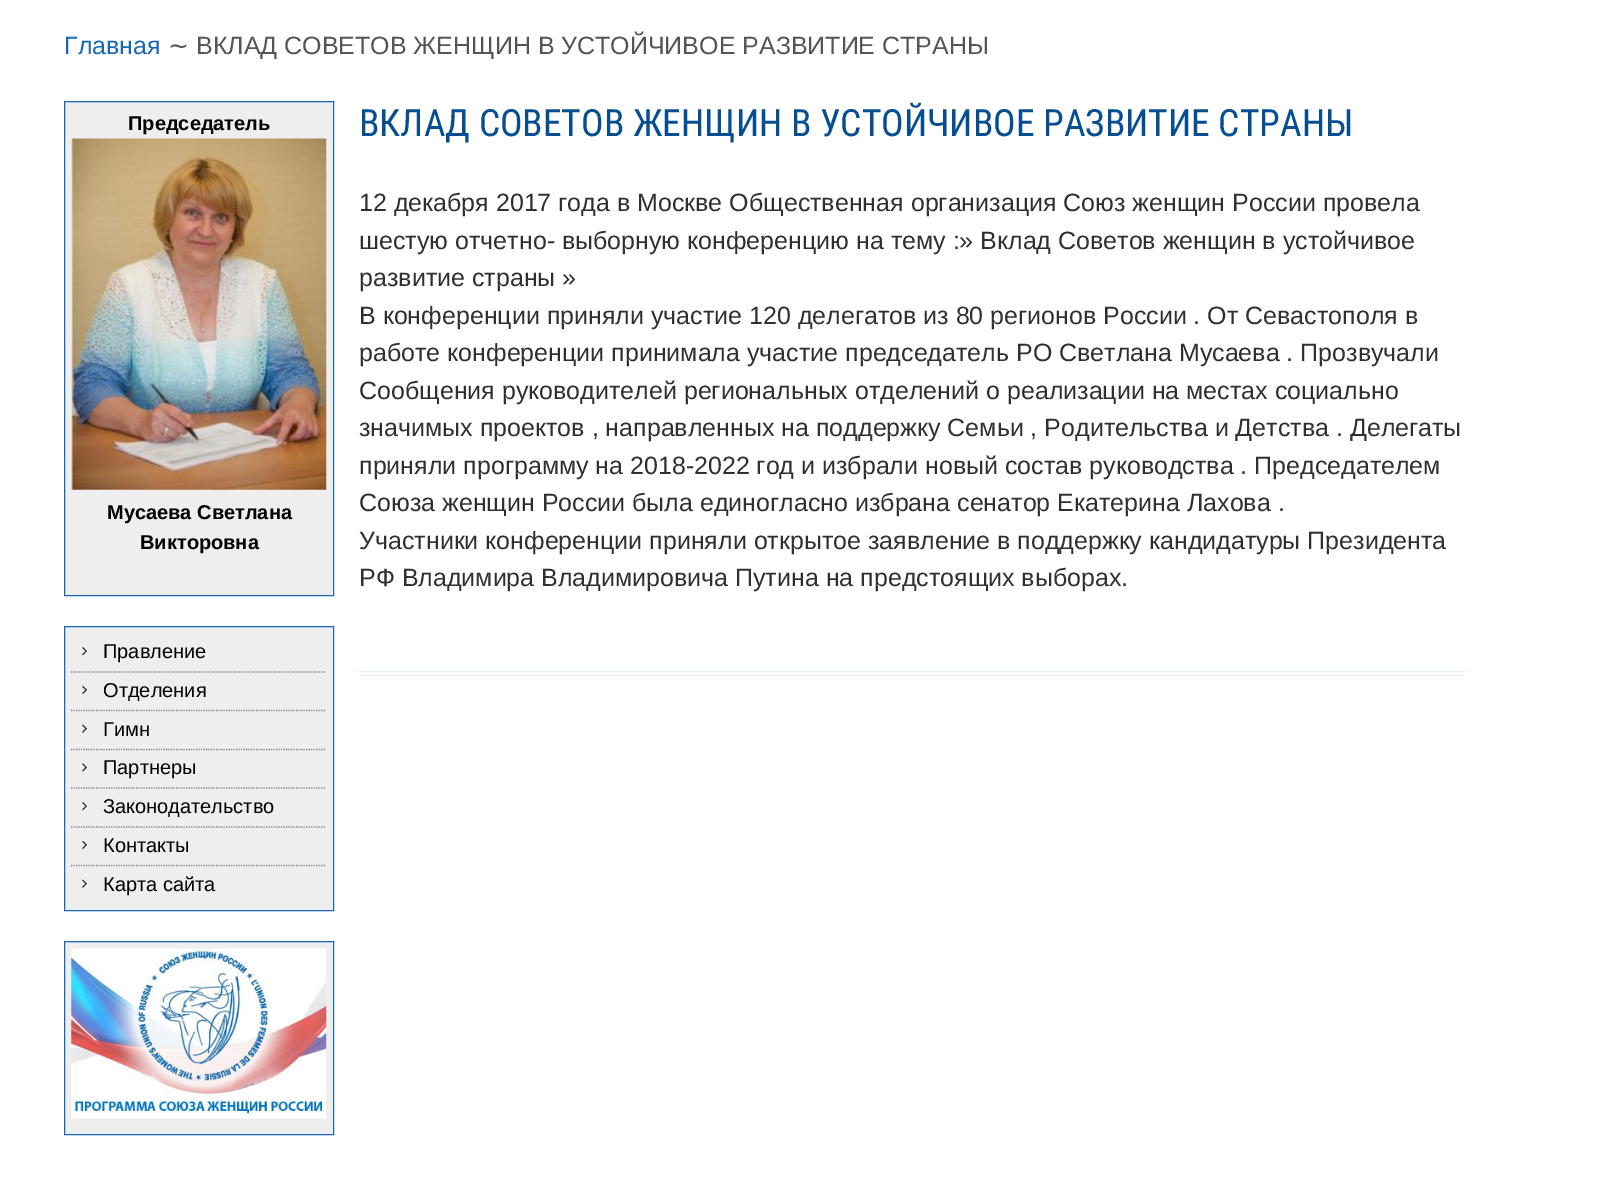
%!PS-Adobe-3.0
%%BoundingBox: 0 0 1602 1193
%%LanguageLevel: 3
%%Pages: 1
%%EndComments
%%BeginProlog
/m { moveto } bind def
/l { lineto } bind def
/h { closepath } bind def
/f { fill } bind def
/S { stroke } bind def
/q { gsave } bind def
/Q { grestore } bind def
/w { setlinewidth } bind def
/fn { [ exch dup neg 0 0 3 -1 roll 0 0 ] selectfont } def
/tx { moveto show } def
/bx { rectfill } def
/im { 5 dict begin { /h /w /y /x /name } { exch def } forall
  gsave x y translate w h scale
  w h 8 [w 0 0 h 0 0] name (r) file false 3 colorimage grestore end } def
%%EndProlog
%%BeginSetup
<< /PageSize [1602 1193] >> setpagedevice
%%EndSetup
%%Page: 1 1
0 1193 translate 1 -1 scale
4 setmiterlimit
1 setgray
0 0 1602 1193 bx
/LiberationSans-Regular 25 fn
0.086 0.408 0.71 setrgbcolor
(Главная) 64 54 tx
/DejaVuSans-Regular 25 fn
0.333 setgray
(∼) 168 54 tx
/LiberationSans-Regular 25 fn
(ВКЛАД СОВЕТОВ ЖЕНЩИН В УСТОЙЧИВОЕ РАЗВИТИЕ СТРАНЫ) 196 54 tx
0.933 setgray
64.5 101.5 m 333.5 101.5 l 333.5 595.5 l 64.5 595.5 l h q f Q
0.086 0.408 0.71 setrgbcolor
S
/LiberationSans-Bold 20 fn
0 setgray
(Председатель) 128 130 tx
(image0.raw) 71 138 256 352 im
(Мусаева Светлана) 107 519 tx
(Викторовна) 140 549 tx
0.933 setgray
64.5 626.5 m 333.5 626.5 l 333.5 910.5 l 64.5 910.5 l h q f Q
0.086 0.408 0.71 setrgbcolor
S
0.502 setgray
1.2 w
[1.25 1.25] 0 setdash
71 672 m 326 672 l S
(image1.raw) 82 647 6 9 im
/LiberationSans-Regular 20 fn
0 setgray
(Правление) 103 658 tx
0.502 setgray
71 710.5 m 326 710.5 l S
(image2.raw) 82 685 6 9 im
0 setgray
(Отделения) 103 697 tx
0.502 setgray
71 749.5 m 326 749.5 l S
(image3.raw) 82 724 6 9 im
0 setgray
(Гимн) 103 736 tx
0.502 setgray
71 788 m 326 788 l S
(image4.raw) 82 763 6 9 im
0 setgray
(Партнеры) 103 774 tx
0.502 setgray
71 827 m 326 827 l S
(image1.raw) 82 802 6 9 im
0 setgray
(Законодательство) 103 813 tx
0.502 setgray
71 865.5 m 326 865.5 l S
(image2.raw) 82 840 6 9 im
0 setgray
(Контакты) 103 852 tx
(image3.raw) 82 879 6 9 im
(Карта сайта) 103 891 tx
0.933 setgray
64.5 941.5 m 333.5 941.5 l 333.5 1134.5 l 64.5 1134.5 l h q f Q
0.086 0.408 0.71 setrgbcolor
1 w
[] 0 setdash
S
(image5.raw) 71 948 256 171 im
0.902 0.937 0.969 setrgbcolor
359 671 1106 1 bx
359 675 1106 1 bx
/RobotoCondensed-Regular 37.5 fn
0.02 0.306 0.573 setrgbcolor
(ВКЛАД СОВЕТОВ ЖЕНЩИН В УСТОЙЧИВОЕ РАЗВИТИЕ СТРАНЫ) 359 136 tx
/LiberationSans-Regular 25 fn
0.188 setgray
(12 декабря 2017 года в Москве Общественная организация Союз женщин России провела) 359 211 tx
(шестую отчетно- выборную конференцию на тему :» Вклад Советов женщин в устойчивое) 359 249 tx
(развитие страны ») 359 286 tx
(В конференции приняли участие 120 делегатов из 80 регионов России . От Севастополя в) 359 324 tx
(работе конференции принимала участие председатель РО Светлана Мусаева . Прозвучали) 359 361 tx
(Сообщения руководителей региональных отделений о реализации на местах социально) 359 399 tx
(значимых проектов , направленных на поддержку Семьи , Родительства и Детства . Делегаты) 359 436 tx
(приняли программу на 2018-2022 год и избрали новый состав руководства . Председателем) 359 474 tx
(Союза женщин России была единогласно избрана сенатор Екатерина Лахова .) 359 511 tx
(Участники конференции приняли открытое заявление в поддержку кандидатуры Президента) 359 549 tx
(РФ Владимира Владимировича Путина на предстоящих выборах.) 359 586 tx
showpage
%%EOF
